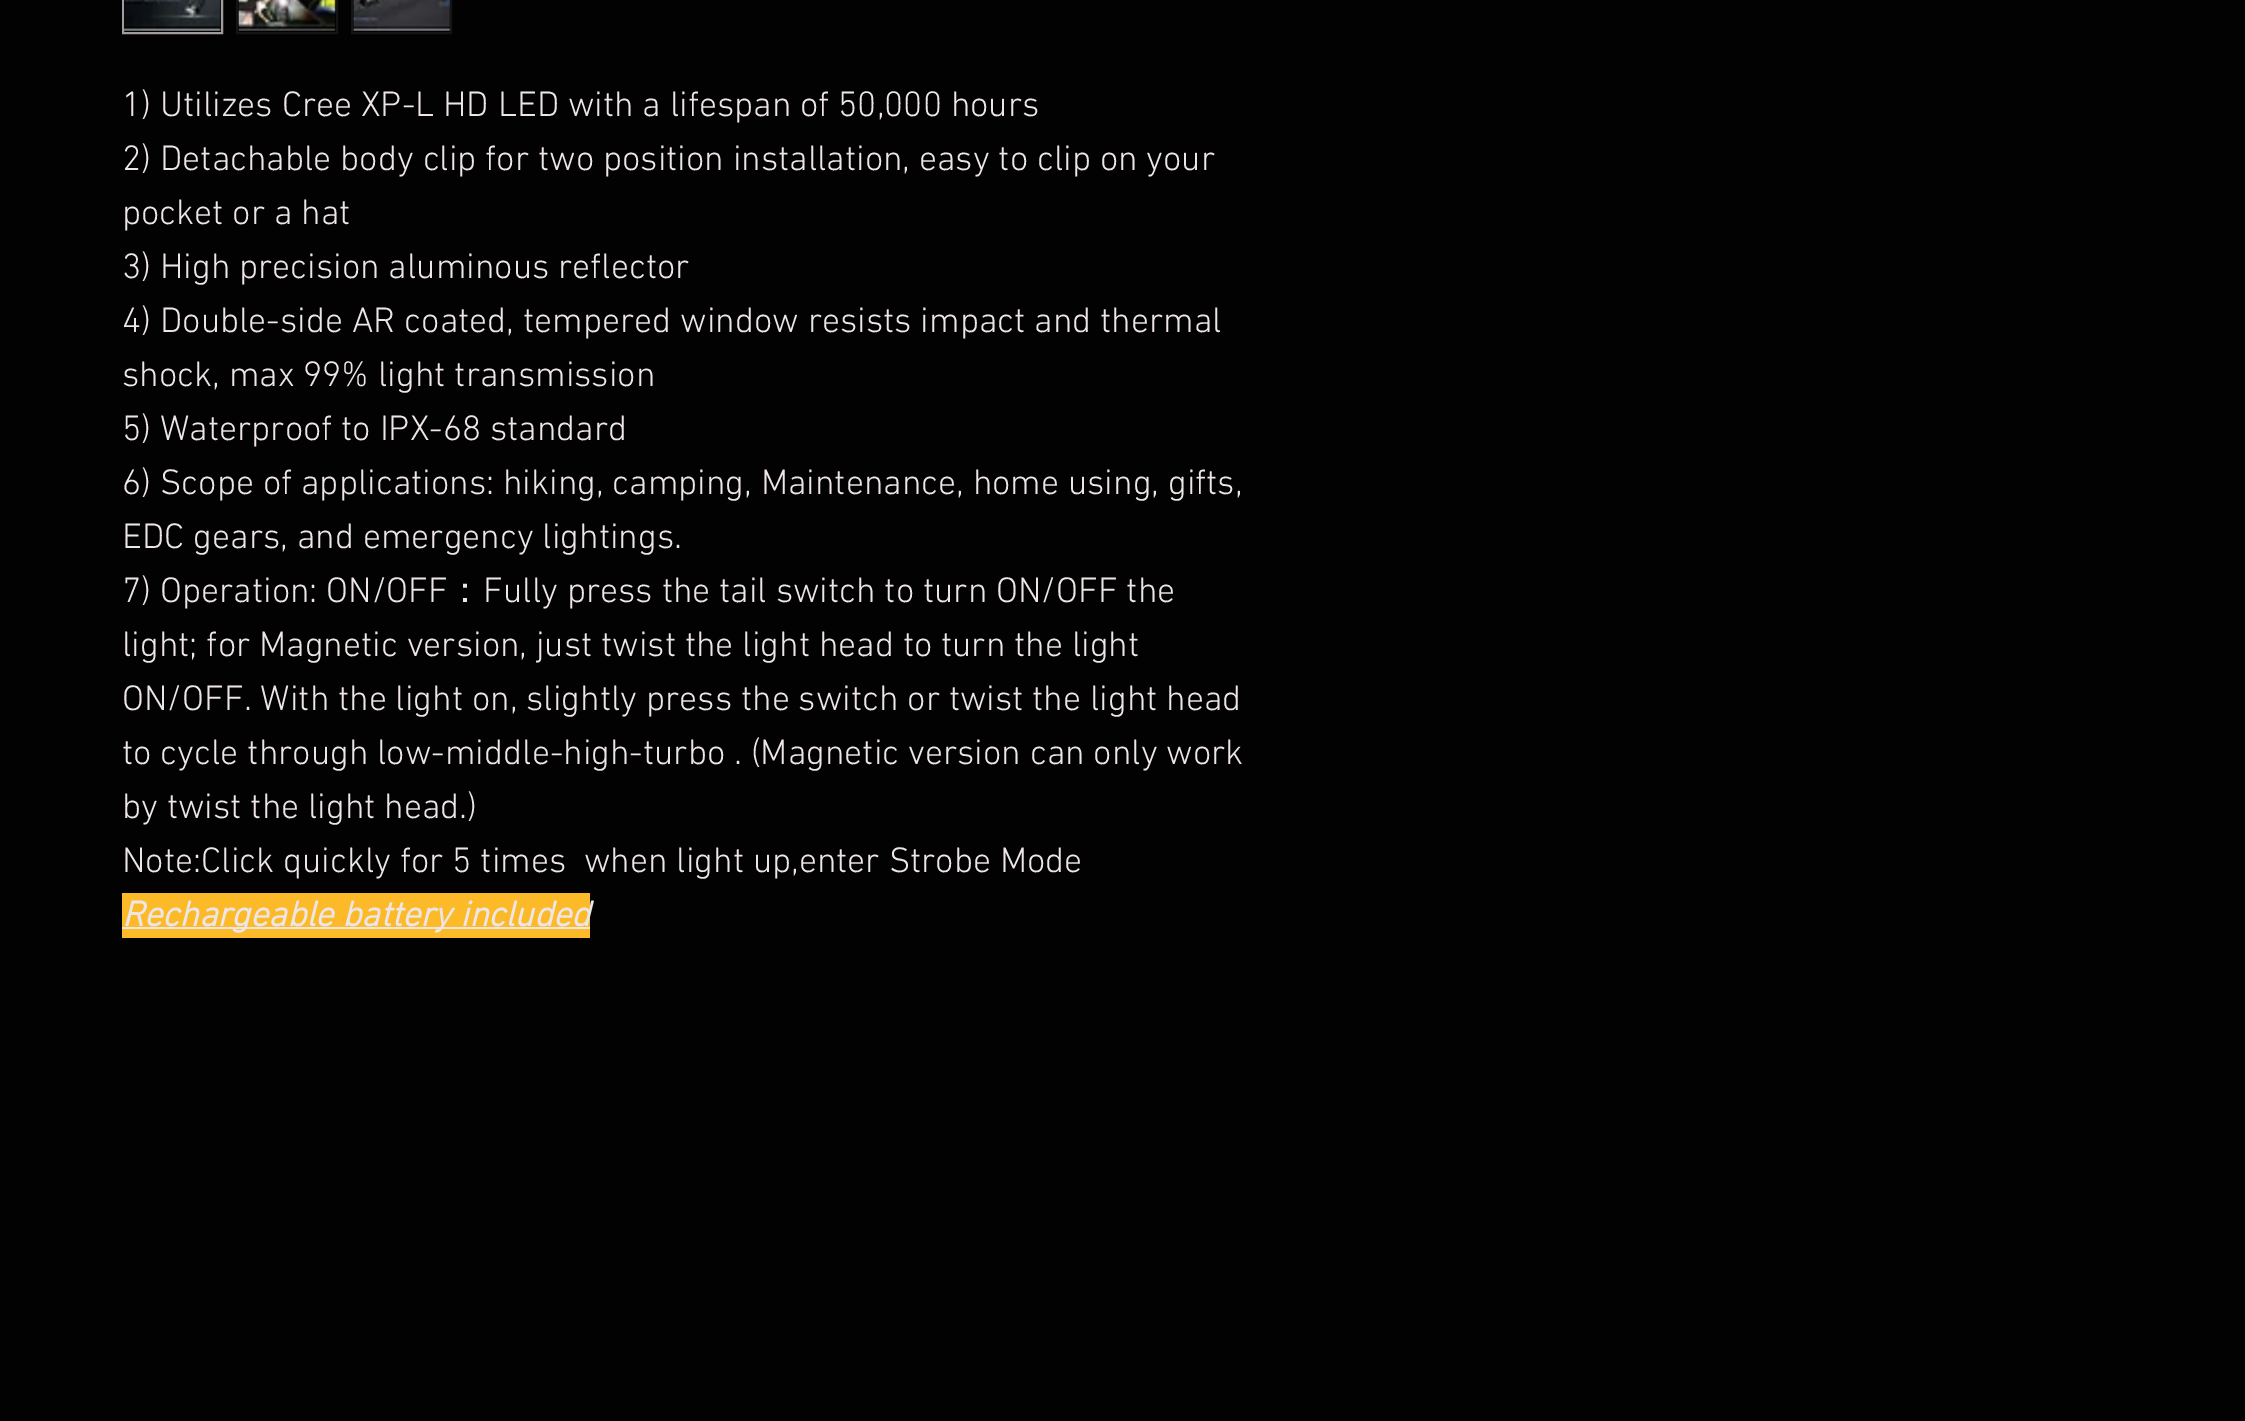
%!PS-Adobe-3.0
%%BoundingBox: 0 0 2245 1421
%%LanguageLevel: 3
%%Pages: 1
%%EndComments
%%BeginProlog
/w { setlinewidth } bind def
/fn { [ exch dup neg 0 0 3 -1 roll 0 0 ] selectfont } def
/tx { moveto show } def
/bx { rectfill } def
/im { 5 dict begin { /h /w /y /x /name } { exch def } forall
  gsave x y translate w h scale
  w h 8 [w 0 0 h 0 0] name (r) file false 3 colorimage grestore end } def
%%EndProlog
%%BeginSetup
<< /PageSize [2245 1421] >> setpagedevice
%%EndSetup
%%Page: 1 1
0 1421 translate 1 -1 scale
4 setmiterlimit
0.008 setgray
0 0 2245 1421 bx
0.635 0.612 0.612 setrgbcolor
2 w
123 -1 99 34 rectstroke
(image0.raw) 124 0 97 31 im
0.078 setgray
237 -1 100 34 rectstroke
(image1.raw) 238 0 98 31 im
352 -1 99 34 rectstroke
(image2.raw) 352 0 99 31 im
/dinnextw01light-Light 36 fn
0.933 0.902 0.902 setrgbcolor
(1\) Utilizes Cree XP-L HD LED with a lifespan of 50,000 hours) 122 116 tx
(2\) Detachable body clip for two position installation, easy to clip on your) 122 170 tx
(pocket or a hat) 122 224 tx
(3\) High precision aluminous reflector) 122 278 tx
(4\) Double-side AR coated, tempered window resists impact and thermal) 122 332 tx
(shock, max 99% light transmission) 122 386 tx
(5\) Waterproof to IPX-68 standard) 122 440 tx
(6\) Scope of applications: hiking, camping, Maintenance, home using, gifts,) 122 494 tx
(EDC gears, and emergency lightings.) 122 548 tx
(7\) Operation: ON/OFF) 122 602 tx
/WenQuanYiZenHei-Medium 36 fn
(：) 447 602 tx
/dinnextw01light-Light 36 fn
(Fully press the tail switch to turn ON/OFF the) 483 602 tx
(light; for Magnetic version, just twist the light head to turn the light) 122 656 tx
(ON/OFF. With the light on, slightly press the switch or twist the light head) 122 710 tx
(to cycle through low-middle-high-turbo . \(Magnetic version can only work) 122 764 tx
(by twist the light head.\)) 122 818 tx
(Note:Click quickly for 5 times  when light up,enter Strobe Mode) 122 872 tx
0.988 0.729 0.157 setrgbcolor
122 893 468 45 bx
0.933 0.902 0.902 setrgbcolor
122 927 468 2 bx
/dinnextw01light-BoldItalic 36 fn
(Rechargeable battery included) 122 926 tx
showpage
%%EOF
